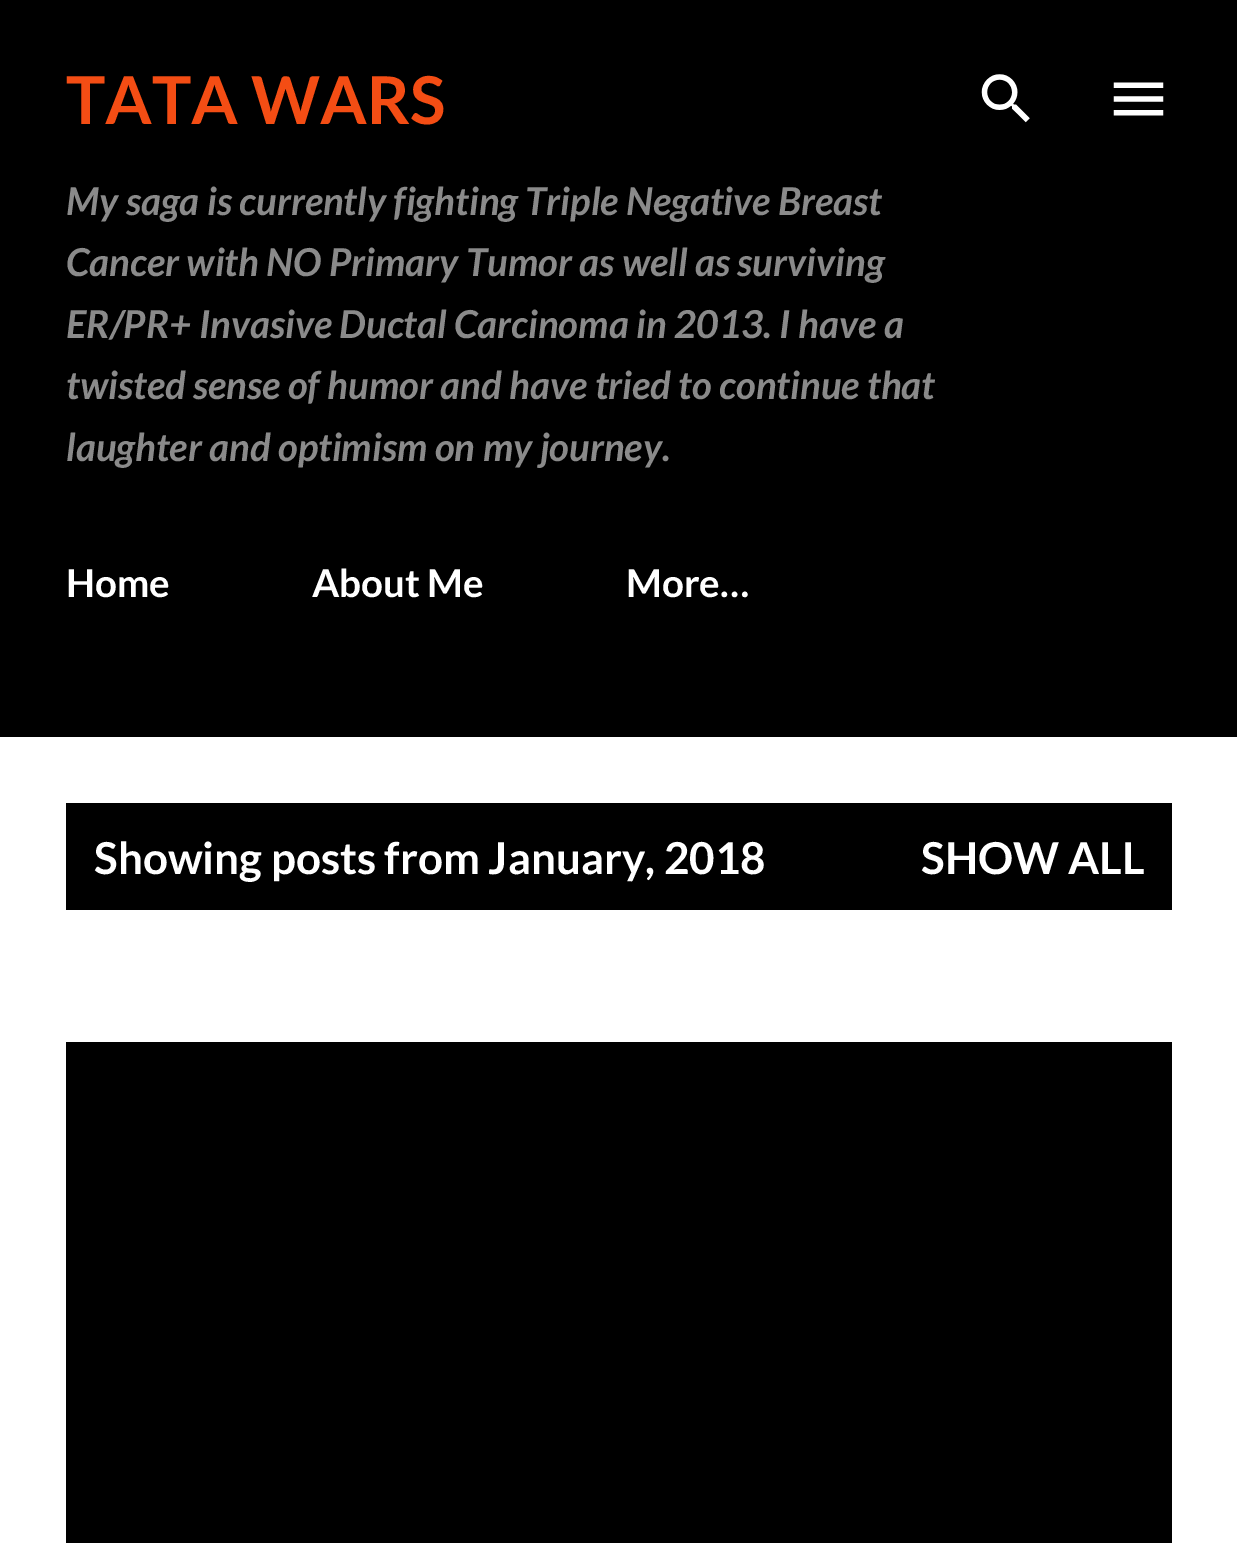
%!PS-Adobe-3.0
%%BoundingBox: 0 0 1237 1543
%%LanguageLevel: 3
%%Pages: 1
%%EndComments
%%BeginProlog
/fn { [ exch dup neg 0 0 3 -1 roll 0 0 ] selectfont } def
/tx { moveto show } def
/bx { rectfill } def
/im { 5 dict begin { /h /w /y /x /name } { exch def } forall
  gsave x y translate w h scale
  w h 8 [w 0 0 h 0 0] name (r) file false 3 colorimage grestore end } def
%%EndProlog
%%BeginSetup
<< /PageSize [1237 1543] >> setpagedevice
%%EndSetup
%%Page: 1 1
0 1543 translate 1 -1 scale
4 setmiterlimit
1 setgray
0 0 1237 1543 bx
0 setgray
0 0 1237 737 bx
/Lato-Bold 66 fn
0.957 0.302 0.078 setrgbcolor
(TATA WARS) 66 124 tx
/Lato-BoldItalic 38.5 fn
0.541 setgray
(My saga is currently fighting Triple Negative Breast) 66 215 tx
(Cancer with NO Primary Tumor as well as surviving) 66 276 tx
(ER/PR+ Invasive Ductal Carcinoma in 2013. I have a) 66 338 tx
(twisted sense of humor and have tried to continue that) 66 399 tx
(laughter and optimism on my journey.) 66 461 tx
(image0.raw) 981 74 49 49 im
(image1.raw) 1113 82 51 34 im
/Lato-Bold 38.5 fn
1 setgray
(Home) 66 597 tx
(About Me) 312 597 tx
(More…) 626 597 tx
0 setgray
66 803 1106 107 bx
/Lato-Bold 44 fn
1 setgray
(Showing posts from January, 2018) 94 874 tx
(SHOW ALL) 921 874 tx
0 setgray
66 1042 1106 501 bx
showpage
%%EOF
